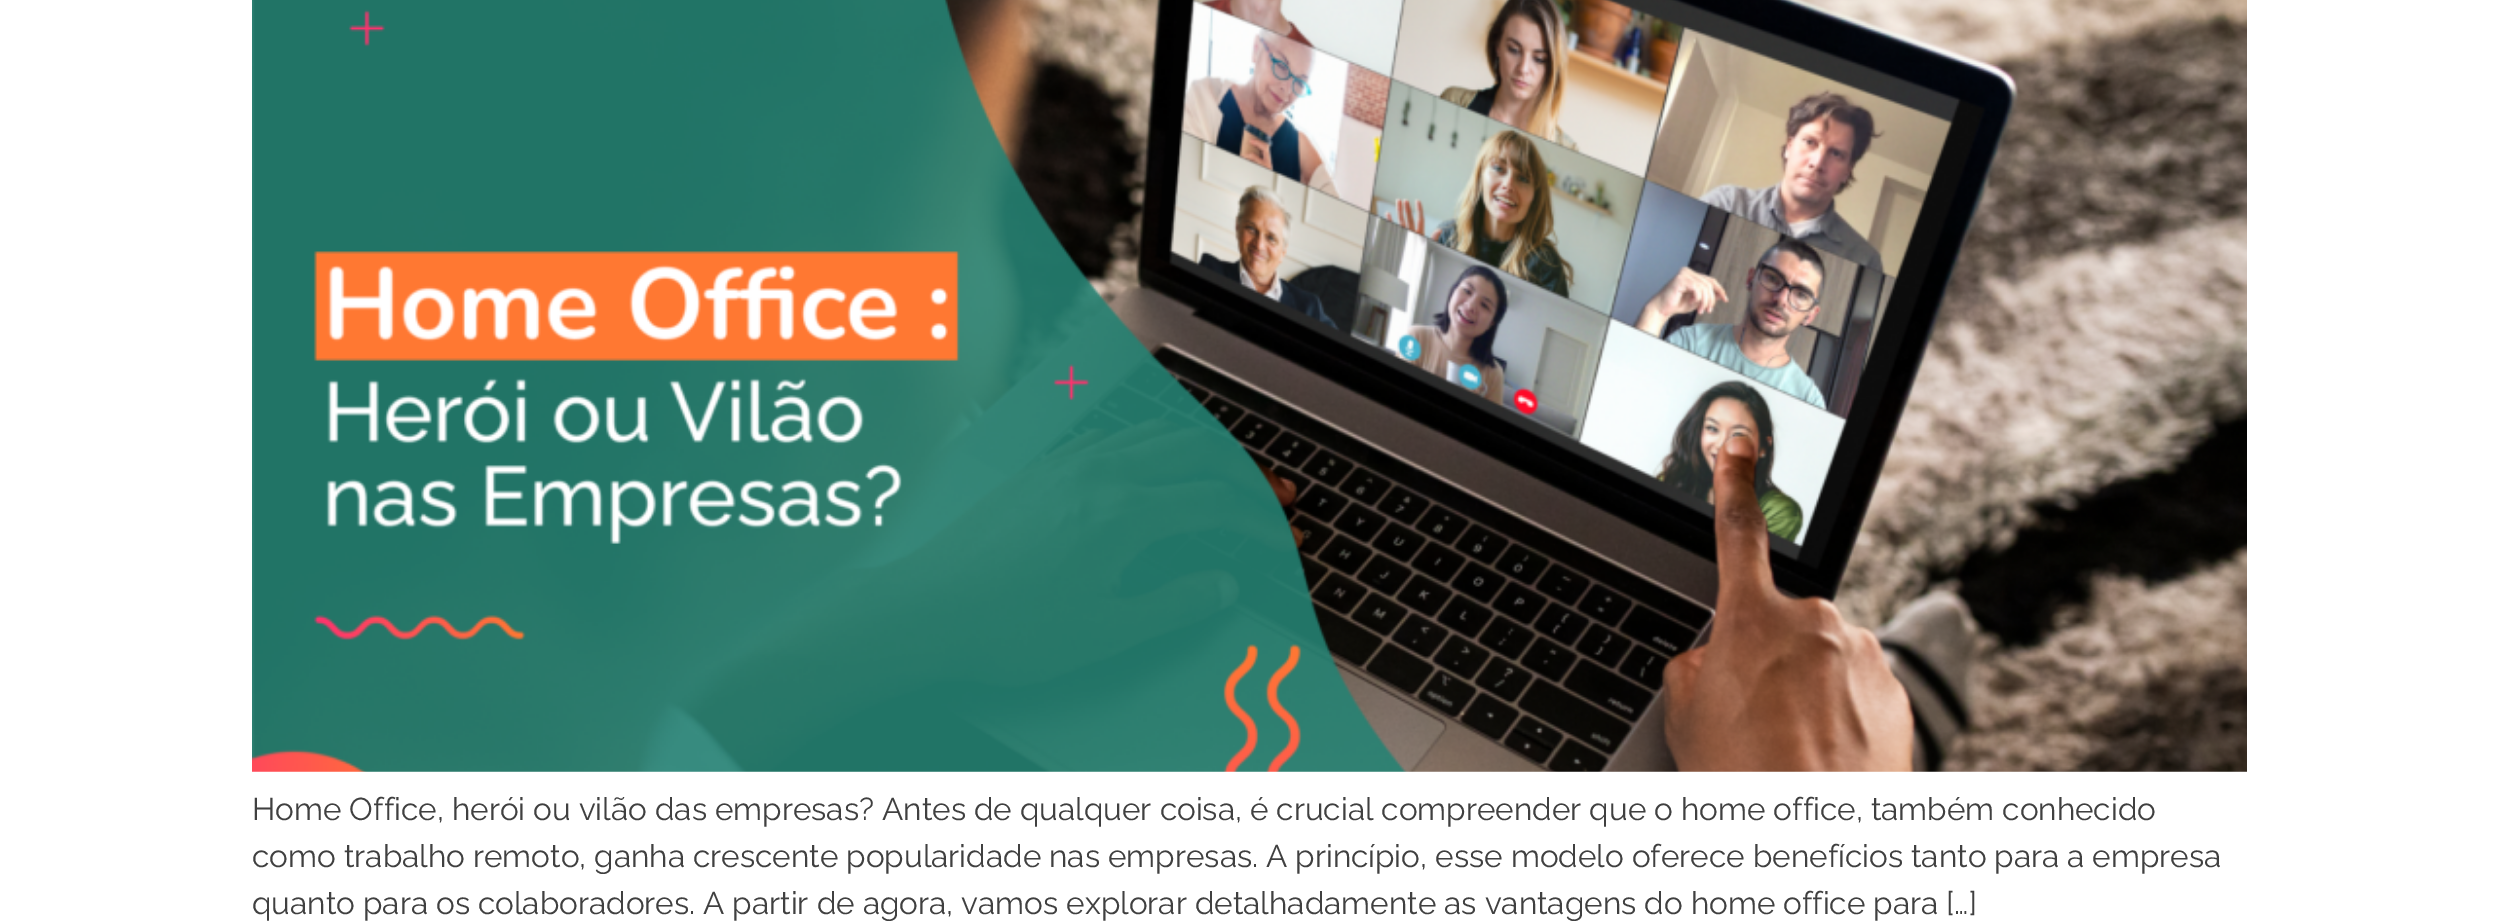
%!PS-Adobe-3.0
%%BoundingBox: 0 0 2499 922
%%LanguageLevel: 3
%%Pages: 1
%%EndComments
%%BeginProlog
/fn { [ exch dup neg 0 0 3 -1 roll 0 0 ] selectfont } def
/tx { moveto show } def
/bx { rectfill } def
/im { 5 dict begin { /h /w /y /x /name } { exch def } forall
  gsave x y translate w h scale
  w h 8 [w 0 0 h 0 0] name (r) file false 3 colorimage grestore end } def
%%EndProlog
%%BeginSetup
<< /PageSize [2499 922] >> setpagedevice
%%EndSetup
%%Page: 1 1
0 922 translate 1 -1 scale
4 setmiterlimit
1 setgray
0 0 2499 922 bx
(image0.raw) 252 0 1995 772 im
/Raleway-Regular 31.5 fn
0.251 setgray
(Home Office, herói ou vilão das empresas? Antes de qualquer coisa, é crucial compreender que o home office, também conhecido) 252 820 tx
(como trabalho remoto, ganha crescente popularidade nas empresas. A princípio, esse modelo oferece benefícios tanto para a empresa) 252 867 tx
(quanto para os colaboradores. A partir de agora, vamos explorar detalhadamente as vantagens do home office para […]) 252 914 tx
showpage
%%EOF
